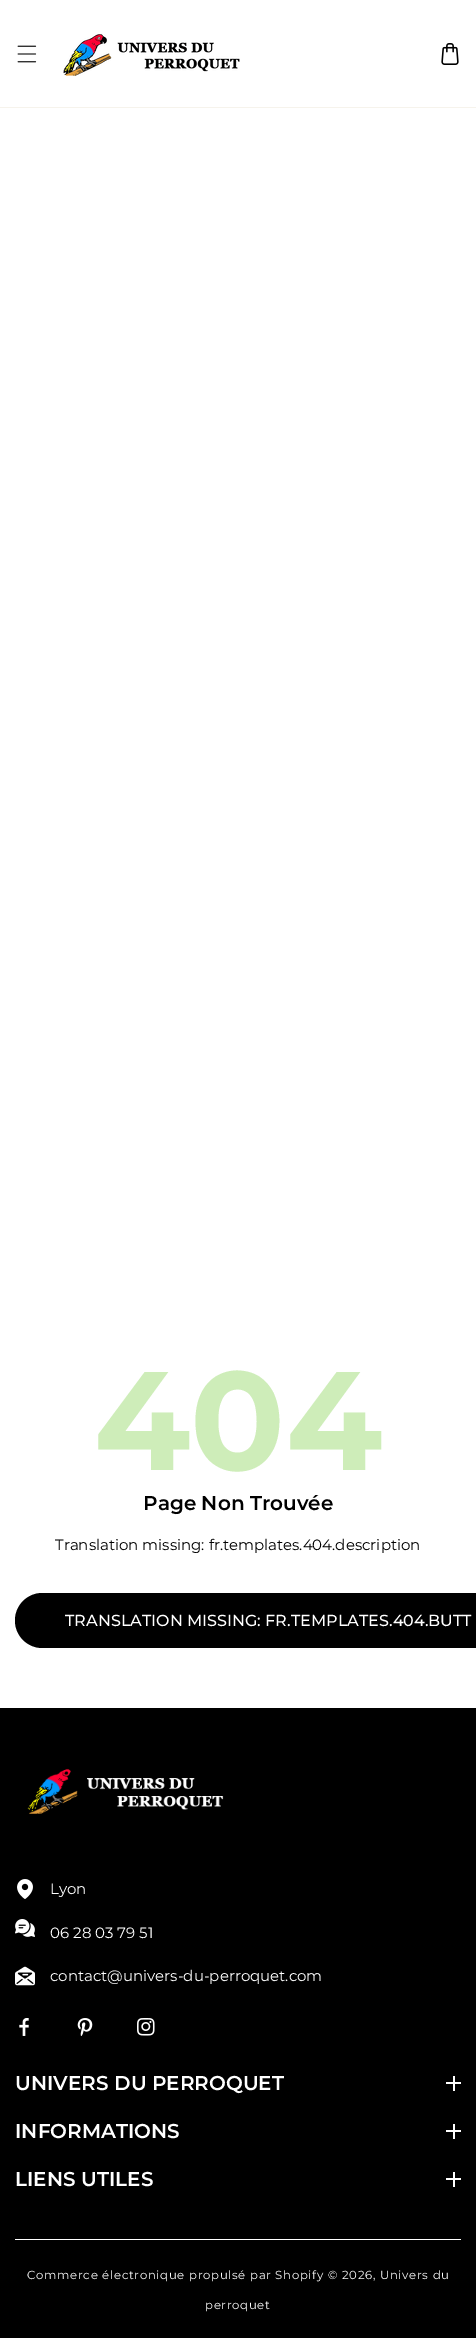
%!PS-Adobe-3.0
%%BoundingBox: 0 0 476 2338
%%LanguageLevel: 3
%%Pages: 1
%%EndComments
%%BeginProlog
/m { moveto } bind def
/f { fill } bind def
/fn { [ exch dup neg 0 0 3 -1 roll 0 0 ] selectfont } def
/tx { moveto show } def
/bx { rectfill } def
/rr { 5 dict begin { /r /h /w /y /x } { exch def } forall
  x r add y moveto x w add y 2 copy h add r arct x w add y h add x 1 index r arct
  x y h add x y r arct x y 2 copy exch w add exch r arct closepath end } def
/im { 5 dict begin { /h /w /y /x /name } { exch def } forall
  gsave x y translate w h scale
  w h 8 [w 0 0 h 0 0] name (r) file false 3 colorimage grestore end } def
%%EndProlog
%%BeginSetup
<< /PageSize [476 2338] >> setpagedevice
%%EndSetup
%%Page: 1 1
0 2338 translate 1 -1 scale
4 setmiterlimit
1 setgray
0 0 476 2338 bx
0.965 0.953 0.925 setrgbcolor
0 107 476 1 bx
(image0.raw) 17 45 20 18 im
(image1.raw) 63 34 177 42 im
(image2.raw) 441 43 18 22 im
/Montserrat-Bold 140 fn
0.808 0.929 0.725 setrgbcolor
(404) 94 1470 tx
/Montserrat-SemiBold 20 fn
0 setgray
(Page Non Trouvée) 143 1510 tx
/Montserrat-Regular 15 fn
(Translation missing: fr.templates.404.description) 55 1550 tx
15 1593 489 55 27.5 rr f
/Montserrat-Medium 16 fn
1 setgray
(TRANSLATION MISSING: FR.TEMPLATES.404.BUTT) 65 1626 tx
0 setgray
0 1708 476 630 bx
1 setgray
15 2239 446 1 bx
(image3.raw) 27 1768 197 46 im
(image4.raw) 17 1879 16 20 im
/Montserrat-Regular 15 fn
(Lyon) 50 1894 tx
(image5.raw) 15 1919 20 18 im
(06 28 03 79 51) 50 1938 tx
(image6.raw) 15 1966 20 20 im
(contact@univers-du-perroquet.com) 50 1981 tx
(image7.raw) 19 2018 10 18 im
(image8.raw) 77 2018 16 18 im
(image9.raw) 137 2018 18 18 im
/Montserrat-SemiBold 20 fn
(UNIVERS DU PERROQUET) 15 2090 tx
453 2076 2 15 bx
446 2082 15 2 bx
(INFORMATIONS) 15 2138 tx
453 2124 2 15 bx
446 2130 15 2 bx
(LIENS UTILES) 15 2186 tx
453 2172 2 15 bx
446 2178 15 2 bx
/Montserrat-Regular 11.7 fn
27 2279 m 0.7 0 (Commerce électronique propulsé par Shopify) ashow
328 2279 m 0.7 0 (© 2026, Univers du) ashow
205 2309 m 0.7 0 (perroquet) ashow
showpage
%%EOF
